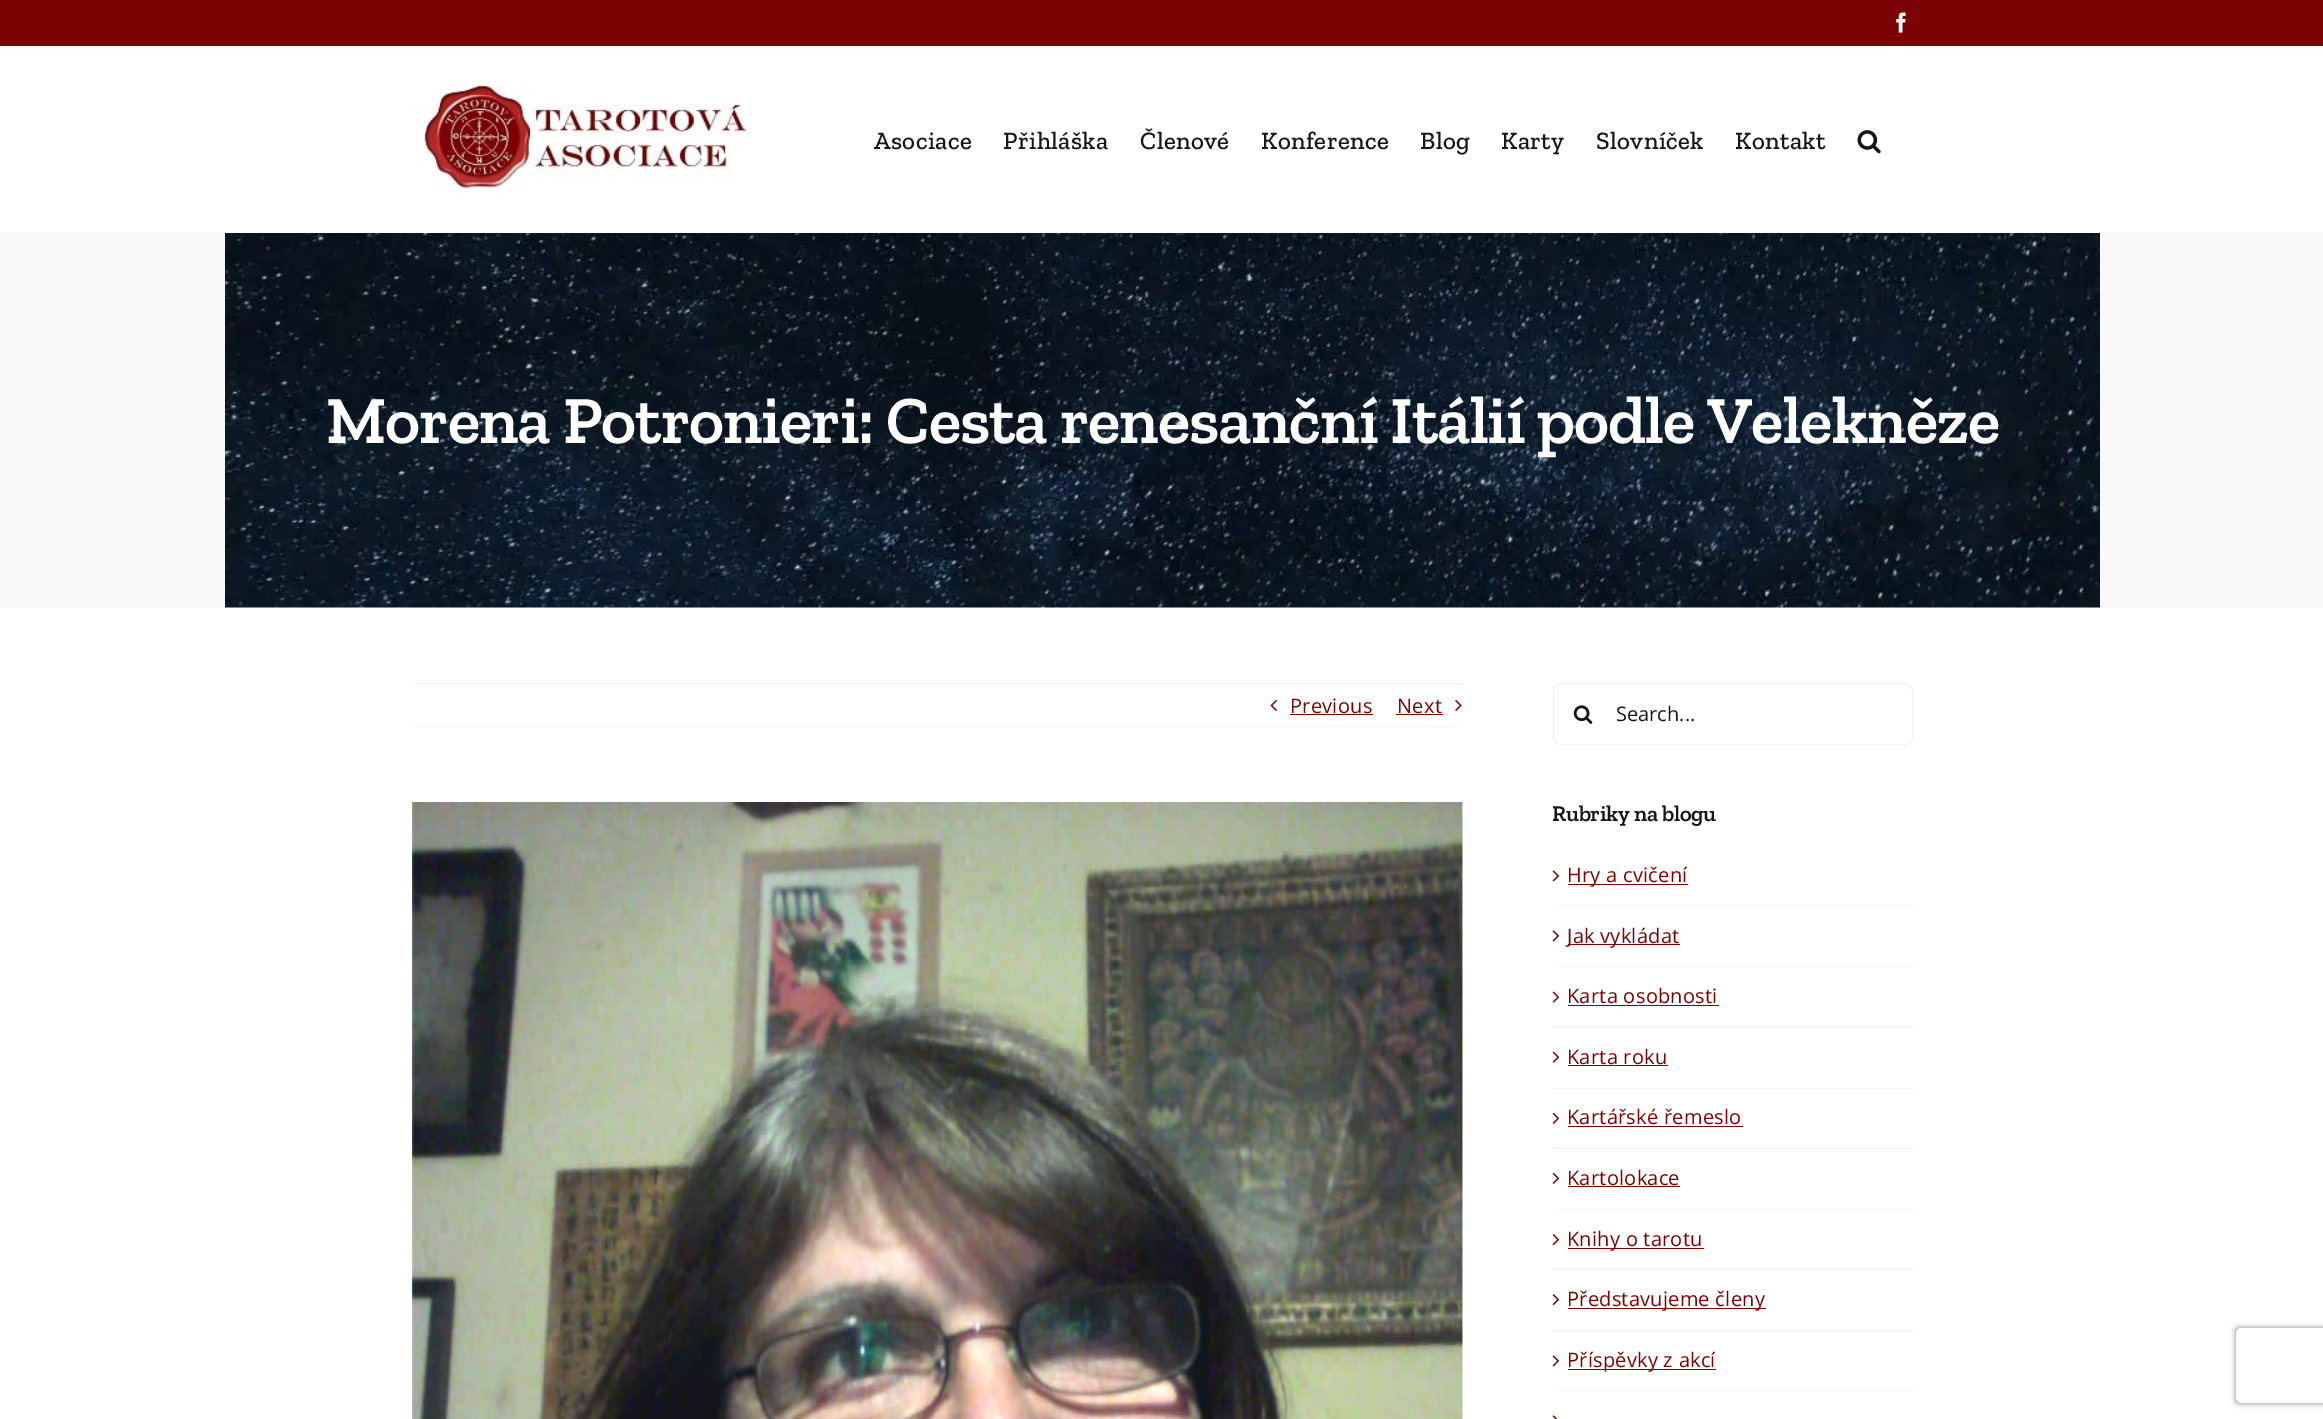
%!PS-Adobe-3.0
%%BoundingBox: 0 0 2323 1419
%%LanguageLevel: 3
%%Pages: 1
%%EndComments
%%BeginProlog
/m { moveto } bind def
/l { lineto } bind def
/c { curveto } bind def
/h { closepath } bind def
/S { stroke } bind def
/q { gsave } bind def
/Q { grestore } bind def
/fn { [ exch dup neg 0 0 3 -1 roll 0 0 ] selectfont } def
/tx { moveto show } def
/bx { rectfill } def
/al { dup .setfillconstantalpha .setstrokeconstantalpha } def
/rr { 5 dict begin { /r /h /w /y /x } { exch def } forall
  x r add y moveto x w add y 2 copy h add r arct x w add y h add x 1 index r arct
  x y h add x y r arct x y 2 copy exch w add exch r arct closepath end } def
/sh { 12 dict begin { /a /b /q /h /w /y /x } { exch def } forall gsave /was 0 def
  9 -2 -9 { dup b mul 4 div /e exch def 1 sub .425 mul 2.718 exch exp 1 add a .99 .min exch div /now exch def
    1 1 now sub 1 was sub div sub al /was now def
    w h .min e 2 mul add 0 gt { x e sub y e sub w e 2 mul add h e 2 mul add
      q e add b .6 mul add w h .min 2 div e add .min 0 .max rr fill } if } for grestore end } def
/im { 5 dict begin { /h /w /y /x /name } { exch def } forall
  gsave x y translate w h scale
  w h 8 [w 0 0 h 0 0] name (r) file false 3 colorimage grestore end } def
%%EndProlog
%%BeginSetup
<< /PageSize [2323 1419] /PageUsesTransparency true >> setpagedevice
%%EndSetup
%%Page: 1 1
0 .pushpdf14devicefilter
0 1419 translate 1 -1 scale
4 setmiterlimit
1 setgray
0 0 2323 1419 bx
0.486 0.012 0.012 setrgbcolor
0 0 2323 46 bx
(image0.raw) 1896 12 10 21 im
(image1.raw) 415 85 334 108 im
/ZillaSlab-Medium 25 fn
0.078 0.086 0.09 setrgbcolor
874 149 m 0.4 0 (Asociace) ashow
1003 149 m 0.4 0 (Přihláška) ashow
1140 149 m 0.4 0 (Členové) ashow
1261 149 m 0.4 0 (Konference) ashow
1420 149 m 0.4 0 (Blog) ashow
1501 149 m 0.4 0 (Karty) ashow
1596 149 m 0.4 0 (Slovníček) ashow
1735 149 m 0.4 0 (Kontakt) ashow
(image2.raw) 1857 130 24 24 im
0.976 0.976 0.984 setrgbcolor
0 233 2323 375 bx
(image3.raw) 225 233 1875 375 im
/ZillaSlab-SemiBold 67.5 fn
1 setgray
326 443 m -1 0 (Morena Potronieri: Cesta renesanční Itálií podle Velekněze) ashow
0.949 0.953 0.961 setrgbcolor
413 683 1050 1 bx
413 726 1050 1 bx
(image4.raw) 1270 700 7 11 im
/OpenSans-Regular 20 fn
0.486 0.012 0.012 setrgbcolor
1290 713 m 0.25 0 (Previous) ashow
1290 714 83 1 bx
1397 713 m 0.25 0 (Next) ashow
1396 714 47 1 bx
(image5.raw) 1455 700 7 11 im
(image6.raw) 412 802 1051 617 im
0.949 0.953 0.961 setrgbcolor
1553.5 683.5 359 61 7.5 rr S
(image7.raw) 1573 705 20 19 im
0.078 0.086 0.09 setrgbcolor
(Search...) 1616 721 tx
/ZillaSlab-SemiBold 22.5 fn
1552 821 m -0.3 0 (Rubriky na blogu) ashow
0.949 0.953 0.961 setrgbcolor
1553 905 360 1 bx
(image8.raw) 1552 870 8 12 im
0.486 0.012 0.012 setrgbcolor
1568 884 120 1 bx
/OpenSans-Regular 20 fn
1567 882 m 0.25 0 (Hry a cvičení) ashow
0.949 0.953 0.961 setrgbcolor
1553 966 360 1 bx
(image8.raw) 1552 930 8 12 im
0.486 0.012 0.012 setrgbcolor
1568 944 112 1 bx
1567 943 m 0.25 0 (Jak vykládat) ashow
0.949 0.953 0.961 setrgbcolor
1553 1026 360 1 bx
(image9.raw) 1552 991 8 12 im
0.486 0.012 0.012 setrgbcolor
1567 1003 m 0.25 0 (Karta osobnosti) ashow
1568 1005 151 1 bx
0.949 0.953 0.961 setrgbcolor
1553 1088 360 1 bx
(image9.raw) 1552 1051 8 12 im
0.486 0.012 0.012 setrgbcolor
1567 1064 m 0.25 0 (Karta roku) ashow
1568 1065 100 1 bx
0.949 0.953 0.961 setrgbcolor
1553 1148 360 1 bx
(image10.raw) 1552 1112 8 12 im
0.486 0.012 0.012 setrgbcolor
1567 1124 m 0.25 0 (Kartářské řemeslo) ashow
1568 1126 175 1 bx
0.949 0.953 0.961 setrgbcolor
1553 1209 360 1 bx
(image10.raw) 1552 1172 8 12 im
0.486 0.012 0.012 setrgbcolor
1567 1185 m 0.25 0 (Kartolokace) ashow
1568 1186 112 1 bx
0.949 0.953 0.961 setrgbcolor
1553 1269 360 1 bx
(image11.raw) 1552 1234 8 12 im
0.486 0.012 0.012 setrgbcolor
1568 1248 136 1 bx
1567 1246 m 0.25 0 (Knihy o tarotu) ashow
0.949 0.953 0.961 setrgbcolor
1553 1330 360 1 bx
(image11.raw) 1552 1294 8 12 im
0.486 0.012 0.012 setrgbcolor
1568 1308 198 1 bx
1567 1306 m 0.25 0 (Představujeme členy) ashow
0.949 0.953 0.961 setrgbcolor
1553 1390 360 1 bx
(image8.raw) 1552 1355 8 12 im
0.486 0.012 0.012 setrgbcolor
1568 1369 148 1 bx
1567 1367 m 0.25 0 (Příspěvky z akcí) ashow
(image12.raw) 1552 1415 6 4 im
q
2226 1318 m 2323 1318 l 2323 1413 l 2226 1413 l h 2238.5 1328 m 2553.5 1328 l 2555 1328 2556 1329 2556 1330.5 c 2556 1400.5 l 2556 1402 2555 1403 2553.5 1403 c 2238.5 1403 l 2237 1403 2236 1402 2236 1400.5 c 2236 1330.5 l 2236 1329 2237 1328 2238.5 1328 c h eoclip newpath
0.502 setgray
2236 1328 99 75 2.5 3 1 sh
Q
.poppdf14devicefilter showpage
%%EOF
